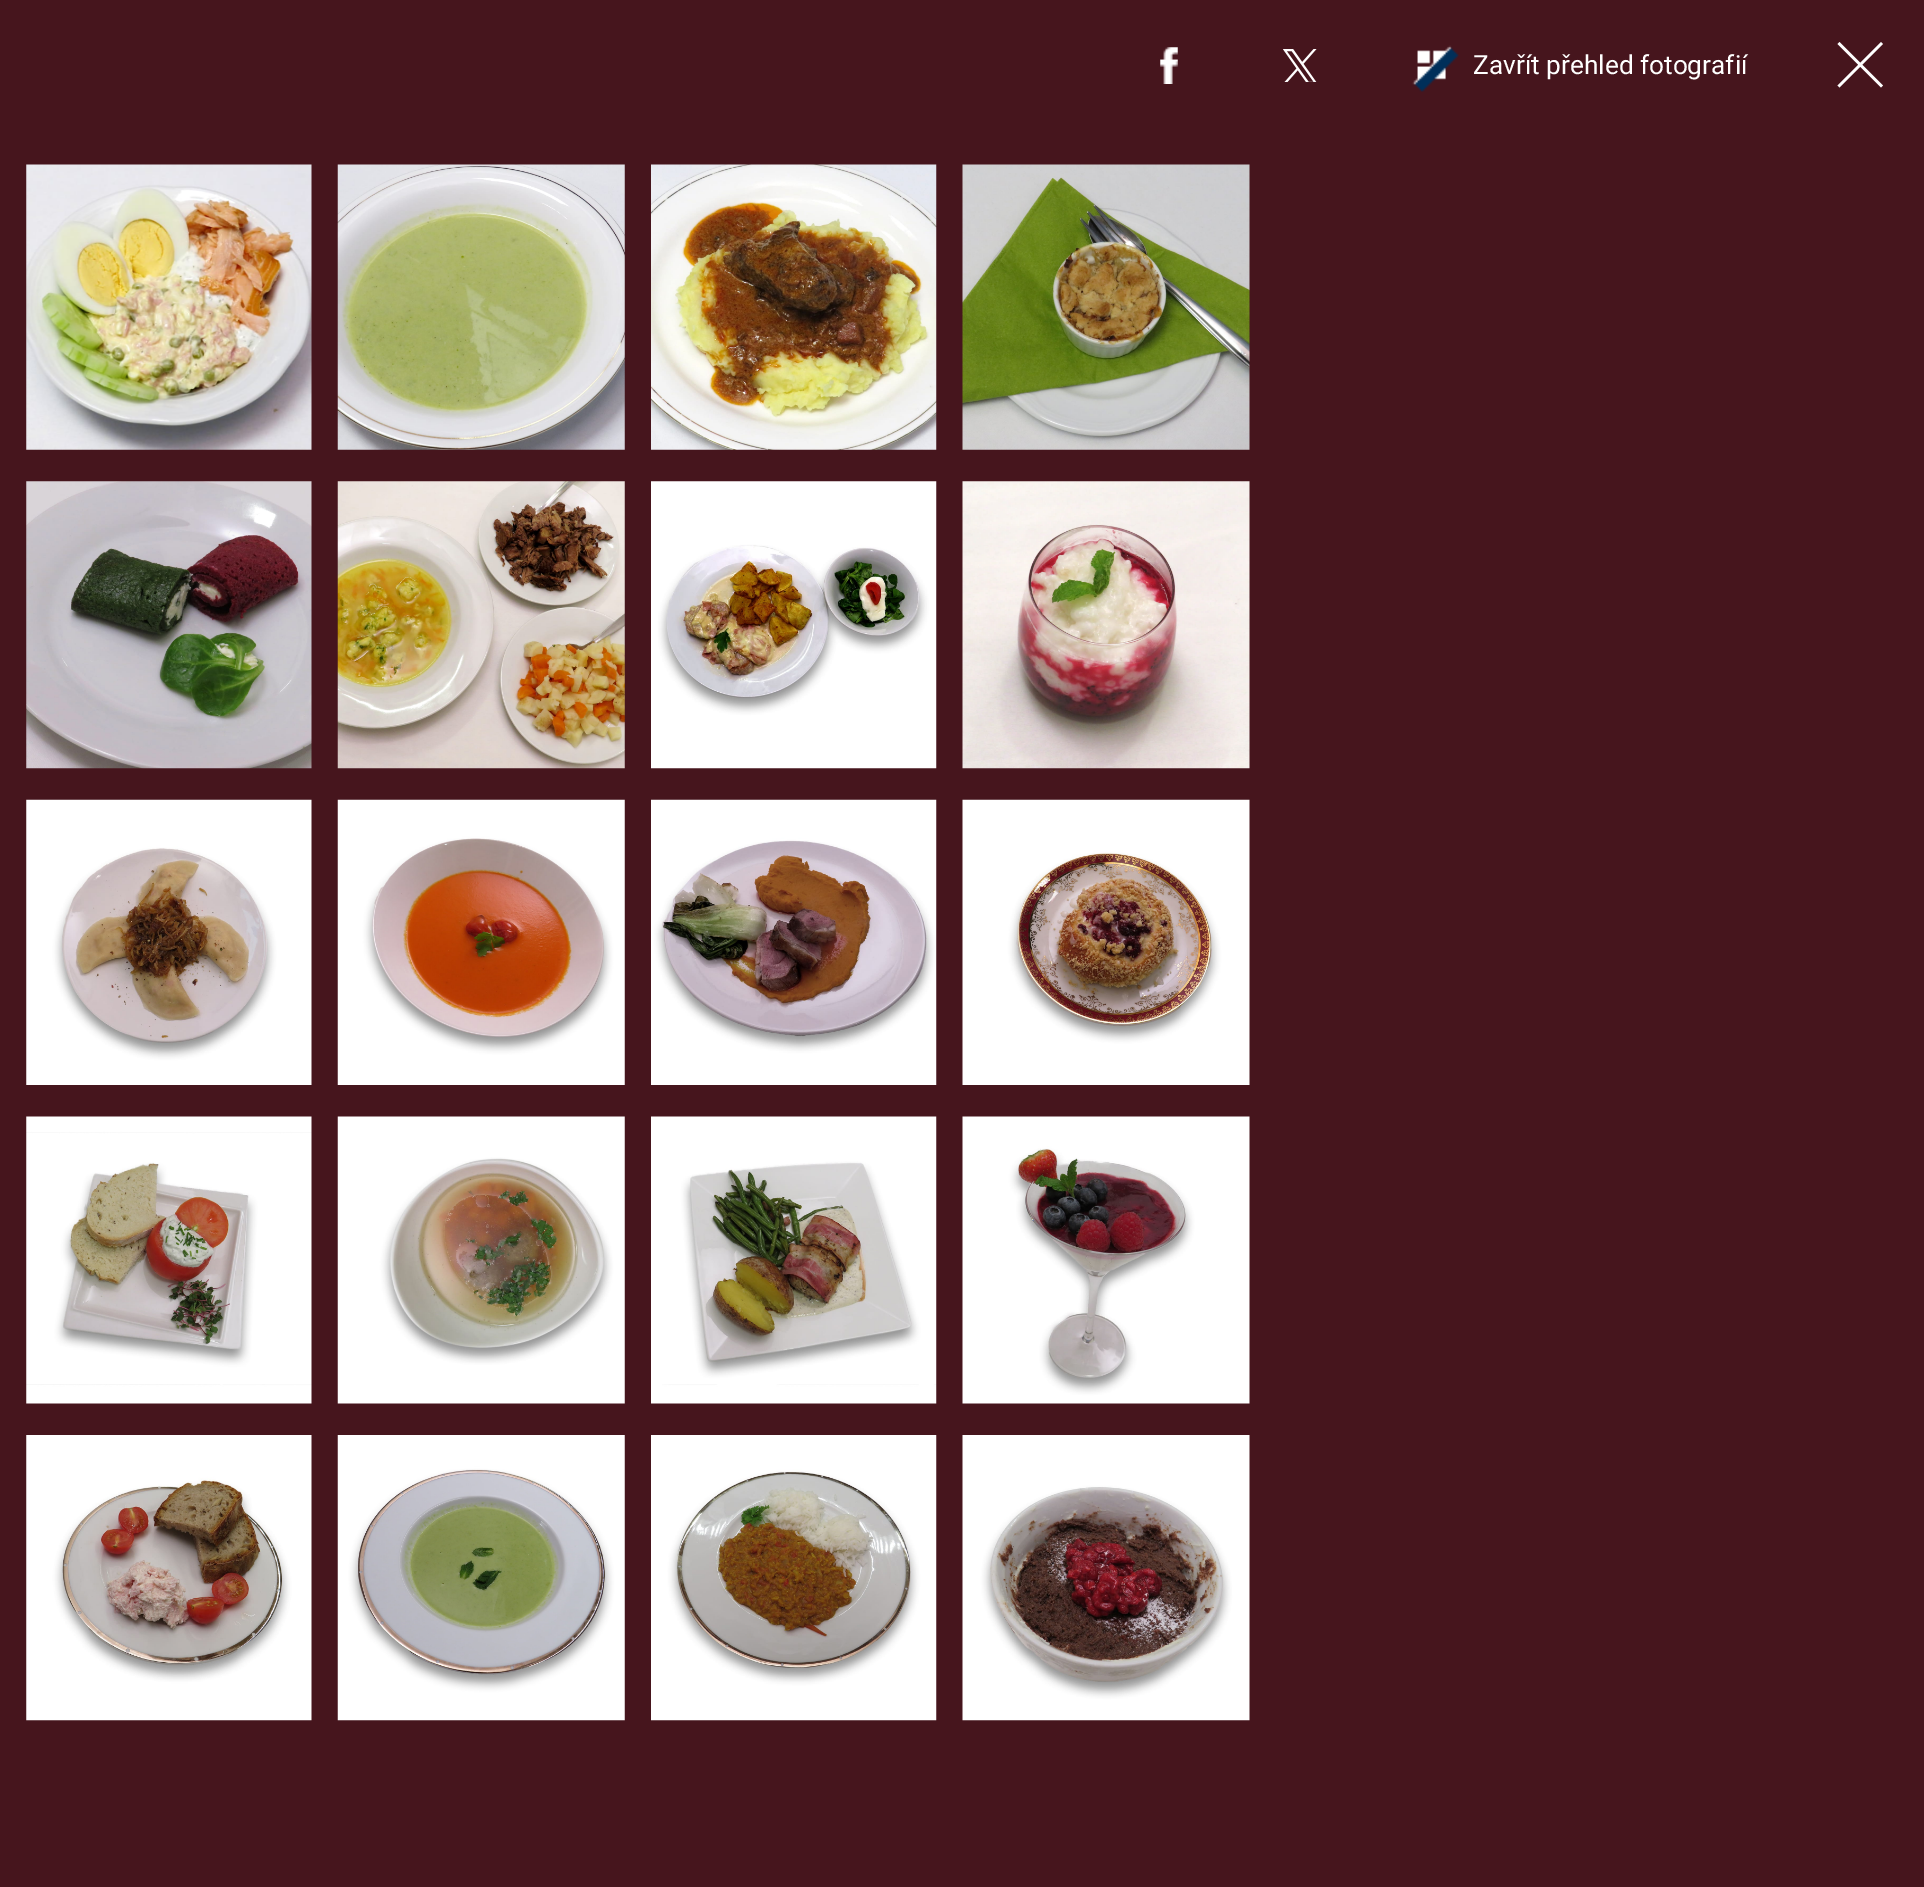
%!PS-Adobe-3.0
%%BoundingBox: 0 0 1924 1887
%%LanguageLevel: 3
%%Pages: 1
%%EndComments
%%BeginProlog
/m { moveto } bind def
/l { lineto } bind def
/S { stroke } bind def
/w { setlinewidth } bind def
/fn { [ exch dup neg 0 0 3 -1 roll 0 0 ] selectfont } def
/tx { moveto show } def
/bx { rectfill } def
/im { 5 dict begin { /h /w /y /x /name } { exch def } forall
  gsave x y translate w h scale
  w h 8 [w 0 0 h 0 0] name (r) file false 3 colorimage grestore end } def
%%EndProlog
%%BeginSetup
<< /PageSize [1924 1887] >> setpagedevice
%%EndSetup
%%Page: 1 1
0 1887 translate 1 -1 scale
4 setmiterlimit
0.275 0.082 0.114 setrgbcolor
0 0 1924 1887 bx
(image0.raw) 1160 47 18 37 im
(image1.raw) 1283 49 34 33 im
(image2.raw) 1412 45 47 47 im
/Roboto-Regular 26.25 fn
1 setgray
(Zavřít přehled fotografií) 1473 74 tx
2.6 w
1838.5 43 m 1882 86.5 l 1882 43 m 1838.5 86.5 l S
(image3.raw) 26 164 286 286 im
(image4.raw) 337 164 288 286 im
(image5.raw) 651 164 286 286 im
(image6.raw) 962 164 288 286 im
(image7.raw) 26 481 286 288 im
(image8.raw) 337 481 288 288 im
(image9.raw) 651 481 286 288 im
(image10.raw) 962 481 288 288 im
(image11.raw) 26 799 286 286 im
(image12.raw) 337 799 288 286 im
(image13.raw) 651 799 286 286 im
(image14.raw) 962 799 288 286 im
(image15.raw) 26 1116 286 288 im
(image16.raw) 337 1116 288 288 im
(image17.raw) 651 1116 286 288 im
(image18.raw) 962 1116 288 288 im
(image19.raw) 26 1435 286 286 im
(image20.raw) 337 1435 288 286 im
(image21.raw) 651 1435 286 286 im
(image22.raw) 962 1435 288 286 im
showpage
%%EOF
